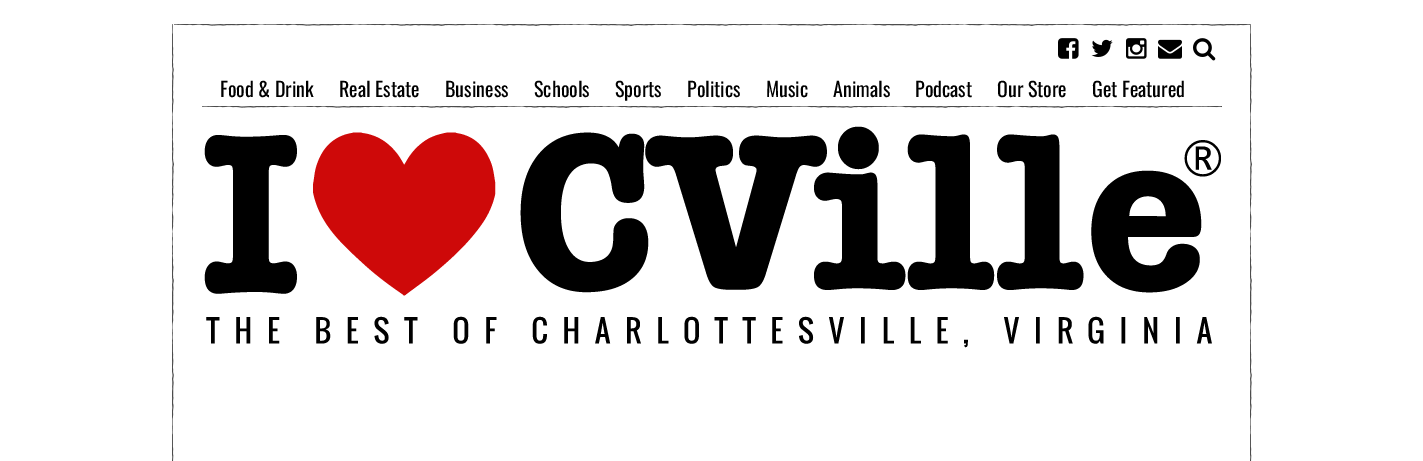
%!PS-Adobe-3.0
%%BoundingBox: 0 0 1423 461
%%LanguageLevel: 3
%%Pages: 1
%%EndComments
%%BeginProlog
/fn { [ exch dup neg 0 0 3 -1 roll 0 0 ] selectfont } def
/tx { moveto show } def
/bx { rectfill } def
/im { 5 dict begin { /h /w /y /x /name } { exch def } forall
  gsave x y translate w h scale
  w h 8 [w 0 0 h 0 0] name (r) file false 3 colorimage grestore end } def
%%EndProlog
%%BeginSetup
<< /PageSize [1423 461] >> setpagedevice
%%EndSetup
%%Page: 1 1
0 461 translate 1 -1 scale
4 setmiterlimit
1 setgray
0 0 1423 461 bx
(image0.raw) 174 24 1076 2 im
(image1.raw) 172 24 2 437 im
(image2.raw) 1058 38 21 21 im
(image3.raw) 1091 39 22 18 im
(image4.raw) 1126 38 21 21 im
(image5.raw) 1158 39 24 20 im
(image6.raw) 1193 38 23 23 im
/Oswald-Regular 20 fn
0 setgray
(Food & Drink) 220 97 tx
(Real Estate) 339 97 tx
(Business) 445 97 tx
(Schools) 534 97 tx
(Sports) 615 97 tx
(Politics) 687 97 tx
(Music) 766 97 tx
(Animals) 833 97 tx
(Podcast) 915 97 tx
(Our Store) 997 97 tx
(Get Featured) 1092 97 tx
(image7.raw) 202 106 1020 2 im
(image1.raw) 1250 24 2 437 im
(image8.raw) 204 126 1017 222 im
showpage
%%EOF
